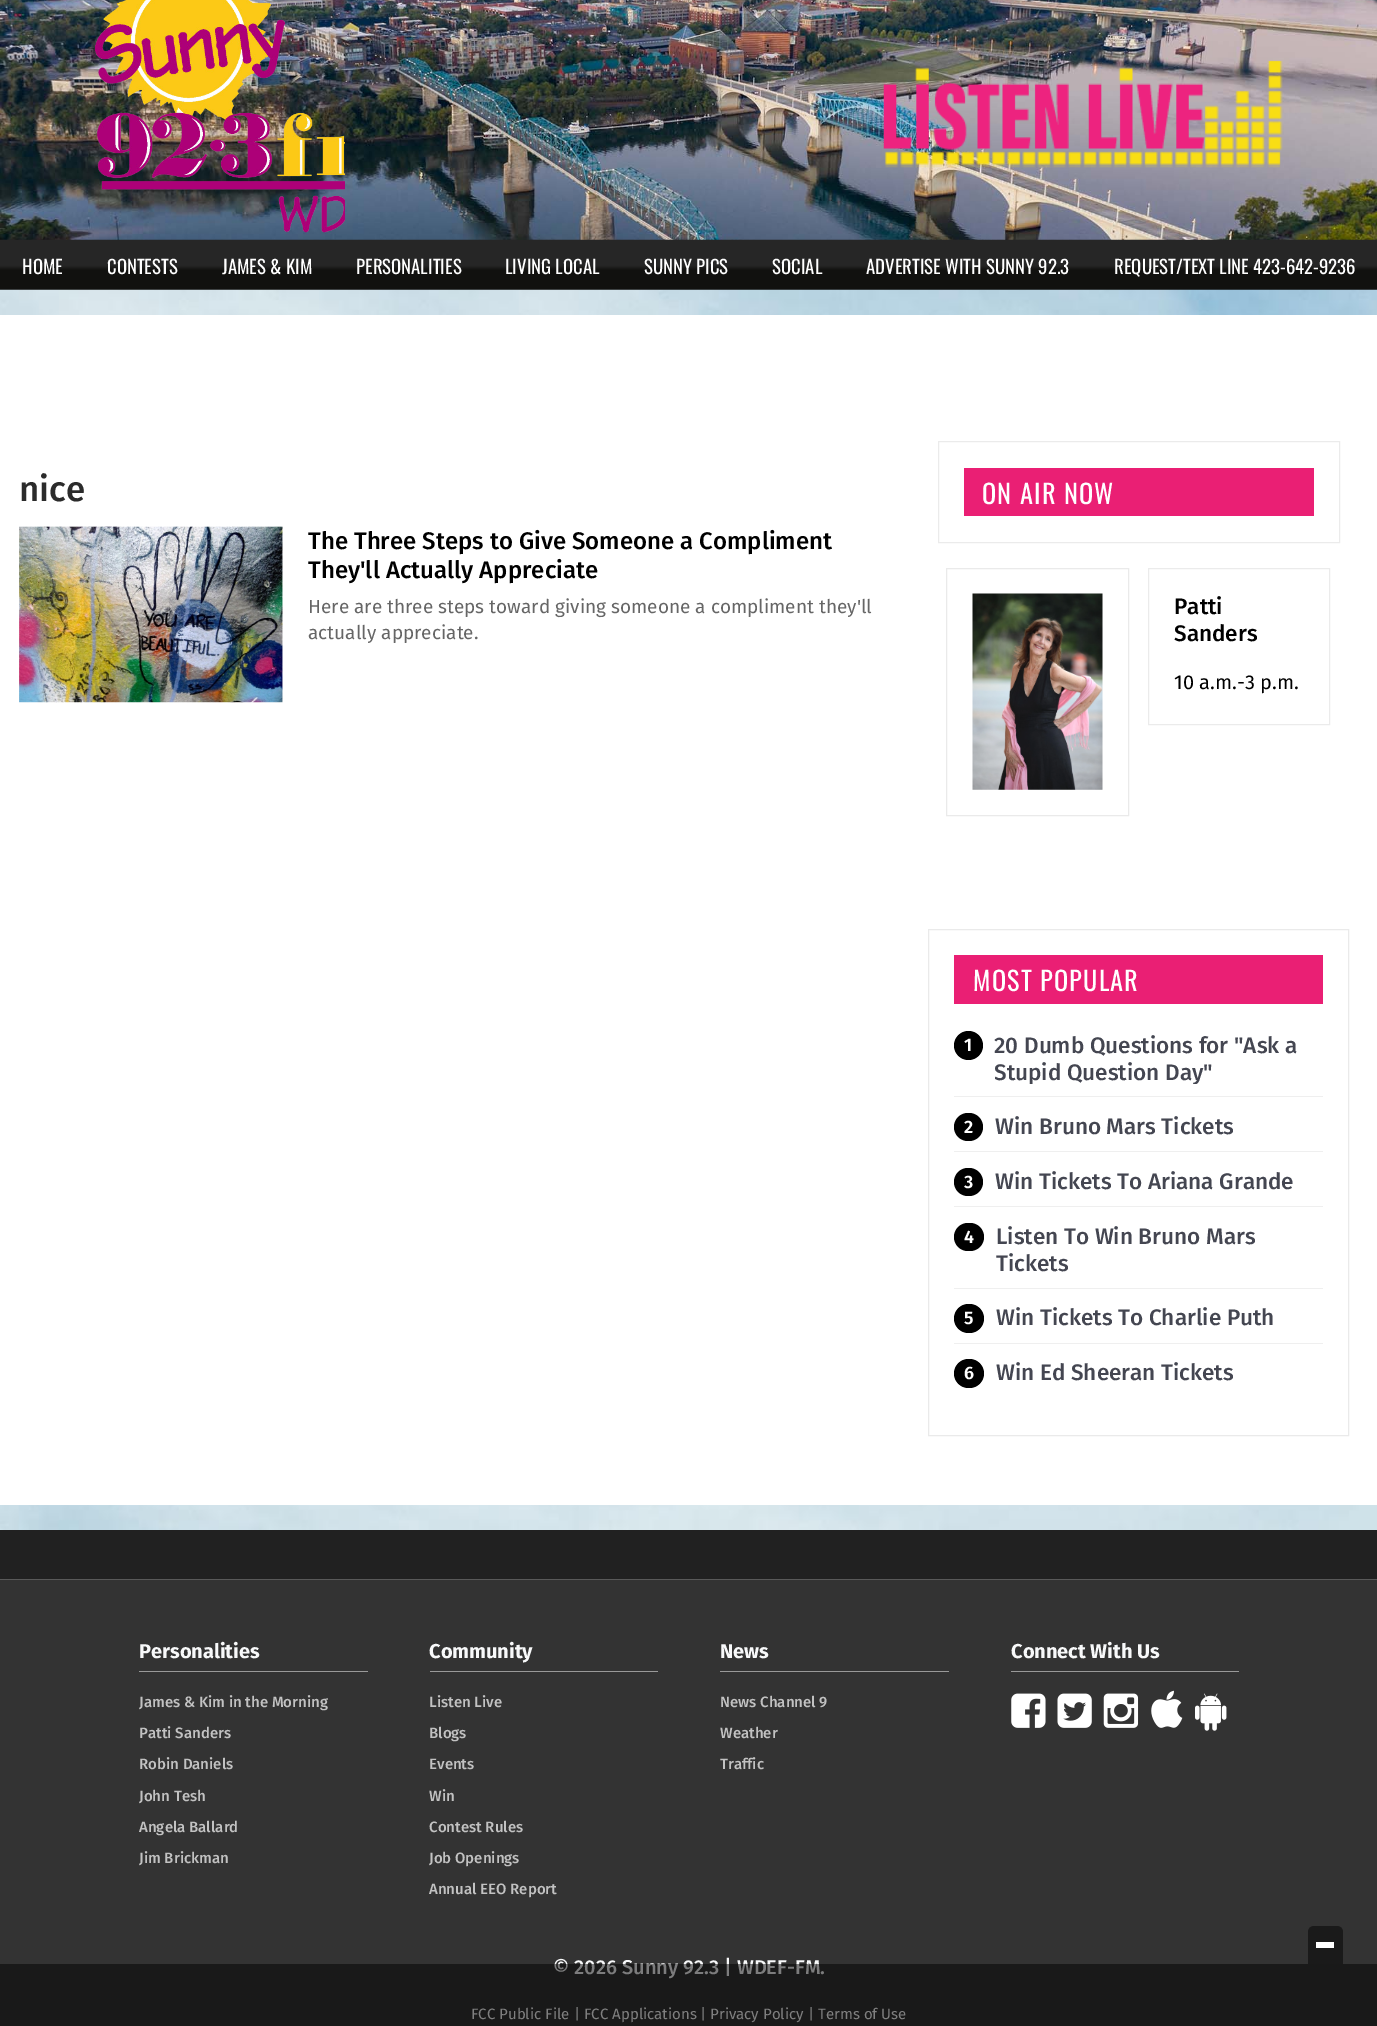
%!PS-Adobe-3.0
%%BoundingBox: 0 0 1377 2026
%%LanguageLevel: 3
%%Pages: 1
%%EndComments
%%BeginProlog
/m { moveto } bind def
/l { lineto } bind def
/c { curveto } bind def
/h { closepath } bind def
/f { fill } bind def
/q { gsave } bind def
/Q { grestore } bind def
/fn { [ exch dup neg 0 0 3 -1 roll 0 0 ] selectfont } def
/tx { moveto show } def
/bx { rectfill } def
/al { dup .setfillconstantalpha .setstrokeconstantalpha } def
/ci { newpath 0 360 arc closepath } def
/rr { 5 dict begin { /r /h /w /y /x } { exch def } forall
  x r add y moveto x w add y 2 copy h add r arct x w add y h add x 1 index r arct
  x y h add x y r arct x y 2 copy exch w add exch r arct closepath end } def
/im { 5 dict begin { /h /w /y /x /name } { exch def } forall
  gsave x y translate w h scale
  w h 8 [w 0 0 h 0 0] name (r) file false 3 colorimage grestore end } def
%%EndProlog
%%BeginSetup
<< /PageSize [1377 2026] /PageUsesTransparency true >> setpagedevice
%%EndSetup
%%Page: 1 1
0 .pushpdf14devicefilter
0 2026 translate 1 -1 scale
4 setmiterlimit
1 setgray
0 0 1377 2026 bx
(image0.raw) 0 0 1377 240 im
(image1.raw) 95 0 250 233 im
(image2.raw) 883 60 400 108 im
(image4.raw) 0 289 1377 1241 im
(image3.raw) 0 239 1377 51 im
/Oswald-Regular 18.75 fn
(HOME) 22 274 tx
(CONTESTS) 107 274 tx
(JAMES & KIM) 222 274 tx
(PERSONALITIES) 356 274 tx
(LIVING LOCAL) 505 274 tx
(SUNNY PICS) 644 274 tx
(SOCIAL) 772 274 tx
(ADVERTISE WITH SUNNY 92.3) 866 274 tx
(REQUEST/TEXT LINE 423-642-9236) 1114 274 tx
0 315 1377 1190 bx
/FiraSans-Medium 35 fn
0.169 setgray
(nice) 19 501 tx
(image5.raw) 19 526 264 177 im
/FiraSans-Medium 24 fn
0 setgray
(The Three Steps to Give Someone a Compliment) 308 549 tx
(They'll Actually Appreciate) 308 578 tx
/FiraSans-Regular 19 fn
0.4 setgray
(Here are three steps toward giving someone a compliment they'll) 308 613 tx
(actually appreciate.) 308 639 tx
0.922 setgray
938.5 441.5 401 101 rectstroke
0.918 0.122 0.455 setrgbcolor
964 468 350 48 bx
/Oswald-Regular 26.25 fn
1 setgray
982 504 m 1.25 0 (ON AIR NOW) ashow
0.918 setgray
946.5 568.5 182 247 rectstroke
(image6.raw) 972 593 131 197 im
0.922 setgray
1148.5 568.5 181 156 rectstroke
/FiraSans-Medium 22.5 fn
0 setgray
(Patti) 1174 614 tx
(Sanders) 1174 641 tx
/FiraSans-Regular 20 fn
(10 a.m.-3 p.m.) 1174 689 tx
0.918 setgray
928.5 929.5 420 506 rectstroke
0.918 0.122 0.455 setrgbcolor
954 955 369 49 bx
/Oswald-Regular 26.25 fn
1 setgray
973 991 m 1.25 0 (MOST POPULAR) ashow
0.937 setgray
954 1096 369 1 bx
0 setgray
968.5 1045.5 14.5 ci f
/FiraSans-SemiBold 18 fn
1 setgray
(1) 964 1051 tx
/FiraSans-Medium 22.5 fn
0.267 0.275 0.318 setrgbcolor
(20 Dumb Questions for "Ask a) 994 1053 tx
q
995 1029 328 55 rectclip
(Stupid Question Day") 994 1080 tx
Q
0.937 setgray
954 1151 369 1 bx
0 setgray
954 1113 29 28 14 rr f
/FiraSans-SemiBold 18 fn
1 setgray
(2) 964 1133 tx
/FiraSans-Medium 22.5 fn
0.267 0.275 0.318 setrgbcolor
(Win Bruno Mars Tickets) 995 1134 tx
0.937 setgray
954 1206 369 1 bx
0 setgray
954 1168 29 28 14 rr f
/FiraSans-SemiBold 18 fn
1 setgray
(3) 964 1188 tx
/FiraSans-Medium 22.5 fn
0.267 0.275 0.318 setrgbcolor
(Win Tickets To Ariana Grande) 995 1189 tx
0.937 setgray
954 1288 369 1 bx
0 setgray
954 1223 30 28 14 rr f
/FiraSans-SemiBold 18 fn
1 setgray
(4) 964 1243 tx
/FiraSans-Medium 22.5 fn
0.267 0.275 0.318 setrgbcolor
(Listen To Win Bruno Mars) 996 1244 tx
(Tickets) 996 1271 tx
0.937 setgray
954 1343 369 1 bx
0 setgray
954 1304 30 29 14.5 rr f
/FiraSans-SemiBold 18 fn
1 setgray
(5) 964 1324 tx
/FiraSans-Medium 22.5 fn
0.267 0.275 0.318 setrgbcolor
(Win Tickets To Charlie Puth) 996 1325 tx
0 setgray
954 1359 30 29 14.5 rr f
/FiraSans-SemiBold 18 fn
1 setgray
(6) 964 1379 tx
/FiraSans-Medium 22.5 fn
0.267 0.275 0.318 setrgbcolor
(Win Ed Sheeran Tickets) 996 1380 tx
0.2 setgray
0 1580 1377 446 bx
/FiraSans-Medium 20 fn
0.973 0.976 0.98 setrgbcolor
(© 2026 Sunny 92.3 | WDEF-FM.) 553 1974 tx
/FiraSans-Regular 15 fn
1 setgray
(FCC Public File) 471 2019 tx
0.973 0.976 0.98 setrgbcolor
(|) 574 2019 tx
1 setgray
(FCC Applications) 584 2019 tx
0.973 0.976 0.98 setrgbcolor
(|) 700 2019 tx
1 setgray
(Privacy Policy) 710 2019 tx
0.973 0.976 0.98 setrgbcolor
(|) 808 2019 tx
1 setgray
(Terms of Use) 818 2019 tx
0.5 al
0 setgray
0 1964 1377 62 bx
1 al
0.102 setgray
1314 1926 m 1337 1926 l 1340.5 1926 1343 1928.5 1343 1932 c 1343 1964 l 1308 1964 l 1308 1932 l 1308 1928.5 1310.5 1926 1314 1926 c h f
1 setgray
1316 1942 18 6 bx
0.129 setgray
0 1530 1377 49 bx
0.349 setgray
0 1579 1377 1 bx
0.6 setgray
139 1671 229 1 bx
/FiraSans-Bold 20 fn
0.973 0.976 0.98 setrgbcolor
(Personalities) 139 1658 tx
/FiraSans-Medium 15 fn
0.761 setgray
(James & Kim in the Morning) 139 1707 tx
(Patti Sanders) 139 1738 tx
(Robin Daniels) 139 1769 tx
(John Tesh) 139 1801 tx
(Angela Ballard) 139 1832 tx
(Jim Brickman) 139 1863 tx
0.6 setgray
430 1671 228 1 bx
/FiraSans-Bold 20 fn
0.973 0.976 0.98 setrgbcolor
(Community) 429 1658 tx
/FiraSans-Medium 15 fn
0.761 setgray
(Listen Live) 429 1707 tx
(Blogs) 429 1738 tx
(Events) 429 1769 tx
(Win) 429 1801 tx
(Contest Rules) 429 1832 tx
(Job Openings) 429 1863 tx
(Annual EEO Report) 429 1894 tx
0.6 setgray
720 1671 229 1 bx
/FiraSans-Bold 20 fn
0.973 0.976 0.98 setrgbcolor
(News) 720 1658 tx
/FiraSans-Medium 15 fn
0.761 setgray
(News Channel 9) 720 1707 tx
(Weather) 720 1738 tx
(Traffic) 720 1769 tx
0.6 setgray
1011 1671 228 1 bx
/FiraSans-Bold 20 fn
0.973 0.976 0.98 setrgbcolor
(Connect With Us) 1011 1658 tx
(image7.raw) 1011 1693 35 35 im
(image8.raw) 1057 1693 35 35 im
(image9.raw) 1103 1693 36 35 im
(image10.raw) 1151 1690 32 38 im
(image11.raw) 1195 1693 32 38 im
.poppdf14devicefilter showpage
%%EOF
